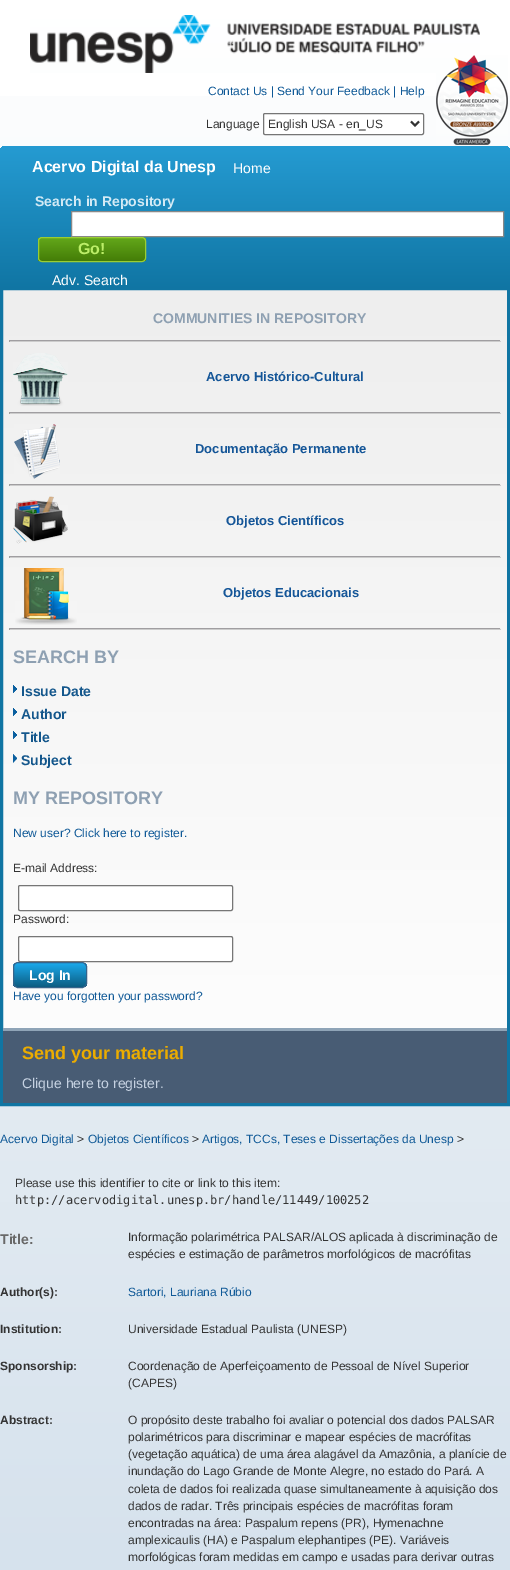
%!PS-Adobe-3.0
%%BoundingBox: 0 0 510 1570
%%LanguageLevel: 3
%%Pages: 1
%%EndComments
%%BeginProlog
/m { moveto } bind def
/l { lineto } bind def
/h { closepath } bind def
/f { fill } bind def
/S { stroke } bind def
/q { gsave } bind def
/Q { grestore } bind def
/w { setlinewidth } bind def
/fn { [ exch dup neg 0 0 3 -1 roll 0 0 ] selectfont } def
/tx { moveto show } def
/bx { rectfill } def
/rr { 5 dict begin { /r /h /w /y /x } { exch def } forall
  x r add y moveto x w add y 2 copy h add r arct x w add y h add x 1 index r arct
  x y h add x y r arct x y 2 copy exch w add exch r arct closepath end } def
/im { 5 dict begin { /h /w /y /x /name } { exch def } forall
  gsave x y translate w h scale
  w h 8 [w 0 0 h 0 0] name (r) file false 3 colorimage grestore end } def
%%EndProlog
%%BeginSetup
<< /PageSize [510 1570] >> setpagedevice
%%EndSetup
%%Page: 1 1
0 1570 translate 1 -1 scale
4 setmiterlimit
1 setgray
0 0 510 1570 bx
q 0 96 m 510 96 l 510 1570 l 0 1570 l h clip newpath
<< /ShadingType 2 /ColorSpace /DeviceRGB /Coords [255 0 255 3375] /Extend [true true] /Function << /FunctionType 2 /Domain [0 1] /C0 [1 1 1] /C1 [0.655 0.757 0.847] /N 1 >> >> shfill Q
(image0.raw) 30 15 450 58 im
/LiberationSans-Regular 12 fn
0.059 0.349 0.592 setrgbcolor
(Contact Us | Send Your Feedback | Help) 208 95 tx
(image1.raw) 436 55 72 90 im
0.2 setgray
(Language) 206 128 tx
1 setgray
263.5 113.5 160 21 1.5 rr q f Q
0.463 setgray
S
0.2 setgray
2 w
411 121.5 m 415 125.5 l 419 121.5 l S
(English USA - en_US) 268 128 tx
q 0 146 510 144 5 rr clip newpath
<< /ShadingType 2 /ColorSpace /DeviceRGB /Coords [255 146 255 290] /Extend [true true] /Function << /FunctionType 2 /Domain [0 1] /C0 [0.145 0.608 0.824] /C1 [0.063 0.459 0.639] /N 1 >> >> shfill Q
/LiberationSans-Bold 16 fn
1 setgray
(Acervo Digital da Unesp) 32 172 tx
/LiberationSans-Regular 14 fn
(Home) 233 173 tx
/LiberationSans-Bold 14 fn
0.827 0.918 0.961 setrgbcolor
(Search in Repository) 35 206 tx
1 setgray
71.5 211.5 m 503.5 211.5 l 503.5 236.5 l 71.5 236.5 l h q f Q
0.533 setgray
1 w
S
q
38 237 108 25 4 rr clip newpath
q 38 238 m 146 238 l 146 261 l 38 261 l h clip newpath
<< /ShadingType 2 /ColorSpace /DeviceRGB /Coords [92 238 92 261] /Extend [true true] /Function << /FunctionType 2 /Domain [0 1] /C0 [0.388 0.655 0.102] /C1 [0.267 0.49 0.027] /N 1 >> >> shfill Q
Q
0.604 0.804 0.196 setrgbcolor
38.5 237.5 107 24 3.5 rr S
/LiberationSans-Bold 16 fn
0.737 0.933 0.408 setrgbcolor
(Go!) 78 254 tx
/LiberationSans-Regular 14 fn
1 setgray
(Adv. Search) 52 285 tx
q 3 290 m 507 290 l 507 1028 l 3 1028 l h clip newpath
<< /ShadingType 2 /ColorSpace /DeviceRGB /Coords [255 290 255 1103] /Extend [true true] /Function << /FunctionType 2 /Domain [0 1] /C0 [0.933 0.933 0.933] /C1 [1 1 1] /N 1 >> >> shfill Q
0.063 0.459 0.639 setrgbcolor
3 w
1.5 288.5 507 816 rectstroke
/LiberationSans-Bold 14 fn
0.557 0.627 0.698 setrgbcolor
(COMMUNITIES IN REPOSITORY) 153 323 tx
0.627 0.62 0.631 setrgbcolor
9 340 492 1 bx
0.933 setgray
500 340 1 2 bx
0.8 setgray
9 341 492 1 bx
0.624 setgray
9 340 1 2 bx
(image2.raw) 13 353 55 53 im
/LiberationSans-Bold 13 fn
0.082 0.337 0.596 setrgbcolor
(Acervo Histórico-Cultural) 206 381 tx
0.627 0.62 0.631 setrgbcolor
9 412 492 1 bx
0.933 setgray
500 412 1 2 bx
0.8 setgray
9 413 492 1 bx
0.624 setgray
9 412 1 2 bx
(image3.raw) 14 424 46 55 im
0.082 0.337 0.596 setrgbcolor
(Documentação Permanente) 195 453 tx
0.627 0.62 0.631 setrgbcolor
9 484 492 1 bx
0.933 setgray
500 484 1 2 bx
0.8 setgray
9 485 492 1 bx
0.624 setgray
9 484 1 2 bx
(image4.raw) 13 496 55 48 im
0.082 0.337 0.596 setrgbcolor
(Objetos Científicos) 226 525 tx
0.627 0.62 0.631 setrgbcolor
9 556 492 1 bx
0.933 setgray
500 556 1 2 bx
0.8 setgray
9 557 492 1 bx
0.624 setgray
9 556 1 2 bx
(image5.raw) 15 568 62 57 im
0.082 0.337 0.596 setrgbcolor
(Objetos Educacionais) 223 597 tx
0.627 0.62 0.631 setrgbcolor
9 628 492 1 bx
0.933 setgray
500 628 1 2 bx
0.8 setgray
9 629 492 1 bx
0.624 setgray
9 628 1 2 bx
/LiberationSans-Bold 18 fn
0.557 0.627 0.698 setrgbcolor
(SEARCH BY) 13 663 tx
(image6.raw) 13 685 4 8 im
/LiberationSans-Bold 14 fn
0.078 0.341 0.549 setrgbcolor
(Issue Date) 21 696 tx
(image7.raw) 13 708 4 8 im
(Author) 21 719 tx
(image7.raw) 13 731 4 8 im
(Title) 21 742 tx
(image8.raw) 13 754 4 9 im
(Subject) 21 765 tx
/LiberationSans-Bold 18 fn
0.557 0.627 0.698 setrgbcolor
(MY REPOSITORY) 13 804 tx
/LiberationSans-Regular 12 fn
0.059 0.349 0.592 setrgbcolor
(New user? Click here to register.) 13 837 tx
0.2 setgray
(E-mail Address:) 13 872 tx
1 setgray
18.5 885.5 214 25 1.5 rr q f Q
0.463 setgray
1 w
S
0.2 setgray
(Password:) 13 923 tx
1 setgray
18.5 936.5 214 25 1.5 rr q f Q
0.463 setgray
S
q
13 962 74 26 5 rr clip newpath
q 13 963 m 87 963 l 87 987 l 13 987 l h clip newpath
<< /ShadingType 2 /ColorSpace /DeviceRGB /Coords [50 963 50 987] /Extend [true true] /Function << /FunctionType 2 /Domain [0 1] /C0 [0.106 0.667 0.925] /C1 [0.051 0.365 0.51] /N 1 >> >> shfill Q
Q
0.212 0.392 0.545 setrgbcolor
13.5 962.5 73 25 4.5 rr S
/LiberationSans-Bold 14 fn
1 setgray
(Log In) 29 980 tx
/LiberationSans-Regular 12 fn
0.059 0.349 0.592 setrgbcolor
(Have you forgotten your password?) 13 1000 tx
0.282 0.361 0.455 setrgbcolor
3 1031 504 72 bx
0.561 0.643 0.718 setrgbcolor
3 1028 504 3 bx
/LiberationSans-Bold 18 fn
0.922 0.675 0 setrgbcolor
(Send your material) 22 1059 tx
/LiberationSans-Regular 14 fn
0.776 0.824 0.886 setrgbcolor
(Clique here to register.) 22 1088 tx
/LiberationSans-Regular 12 fn
0.059 0.349 0.592 setrgbcolor
(Acervo Digital) 0 1143 tx
0.2 setgray
(>) 77 1143 tx
0.059 0.349 0.592 setrgbcolor
(Objetos Científicos) 88 1143 tx
0.2 setgray
(>) 192 1143 tx
0.059 0.349 0.592 setrgbcolor
(Artigos, TCCs, Teses e Dissertações da Unesp) 202 1143 tx
0.2 setgray
(>) 457 1143 tx
(Please use this identifier to cite or link to this item:) 15 1187 tx
/DejaVuSansMono-Regular 12 fn
(http://acervodigital.unesp.br/handle/11449/100252) 15 1204 tx
/LiberationSans-Bold 14 fn
0.412 setgray
(Title:) 0 1244 tx
/LiberationSans-Regular 12 fn
0.2 setgray
(Informação polarimétrica PALSAR/ALOS aplicada à discriminação de) 128 1241 tx
(espécies e estimação de parâmetros morfológicos de macrófitas) 128 1258 tx
/LiberationSans-Bold 12 fn
(Author\(s\):) 0 1296 tx
/LiberationSans-Regular 12 fn
0.059 0.349 0.592 setrgbcolor
(Sartori, Lauriana Rúbio) 128 1296 tx
/LiberationSans-Bold 12 fn
0.2 setgray
(Institution:) 0 1333 tx
/LiberationSans-Regular 12 fn
(Universidade Estadual Paulista \(UNESP\)) 128 1333 tx
/LiberationSans-Bold 12 fn
(Sponsorship:) 0 1370 tx
/LiberationSans-Regular 12 fn
(Coordenação de Aperfeiçoamento de Pessoal de Nível Superior) 128 1370 tx
(\(CAPES\)) 128 1387 tx
/LiberationSans-Bold 12 fn
(Abstract:) 0 1424 tx
/LiberationSans-Regular 12 fn
(O propósito deste trabalho foi avaliar o potencial dos dados PALSAR) 128 1424 tx
(polarimétricos para discriminar e mapear espécies de macrófitas) 128 1441 tx
(\(vegetação aquática\) de uma área alagável da Amazônia, a planície de) 128 1458 tx
(inundação do Lago Grande de Monte Alegre, no estado do Pará. A) 128 1475 tx
(coleta de dados foi realizada quase simultaneamente à aquisição dos) 128 1493 tx
(dados de radar. Três principais espécies de macrófitas foram) 128 1510 tx
(encontradas na área: Paspalum repens \(PR\), Hymenachne) 128 1527 tx
(amplexicaulis \(HA\) e Paspalum elephantipes \(PE\). Variáveis) 128 1544 tx
(morfológicas foram medidas em campo e usadas para derivar outras) 128 1561 tx
showpage
%%EOF
